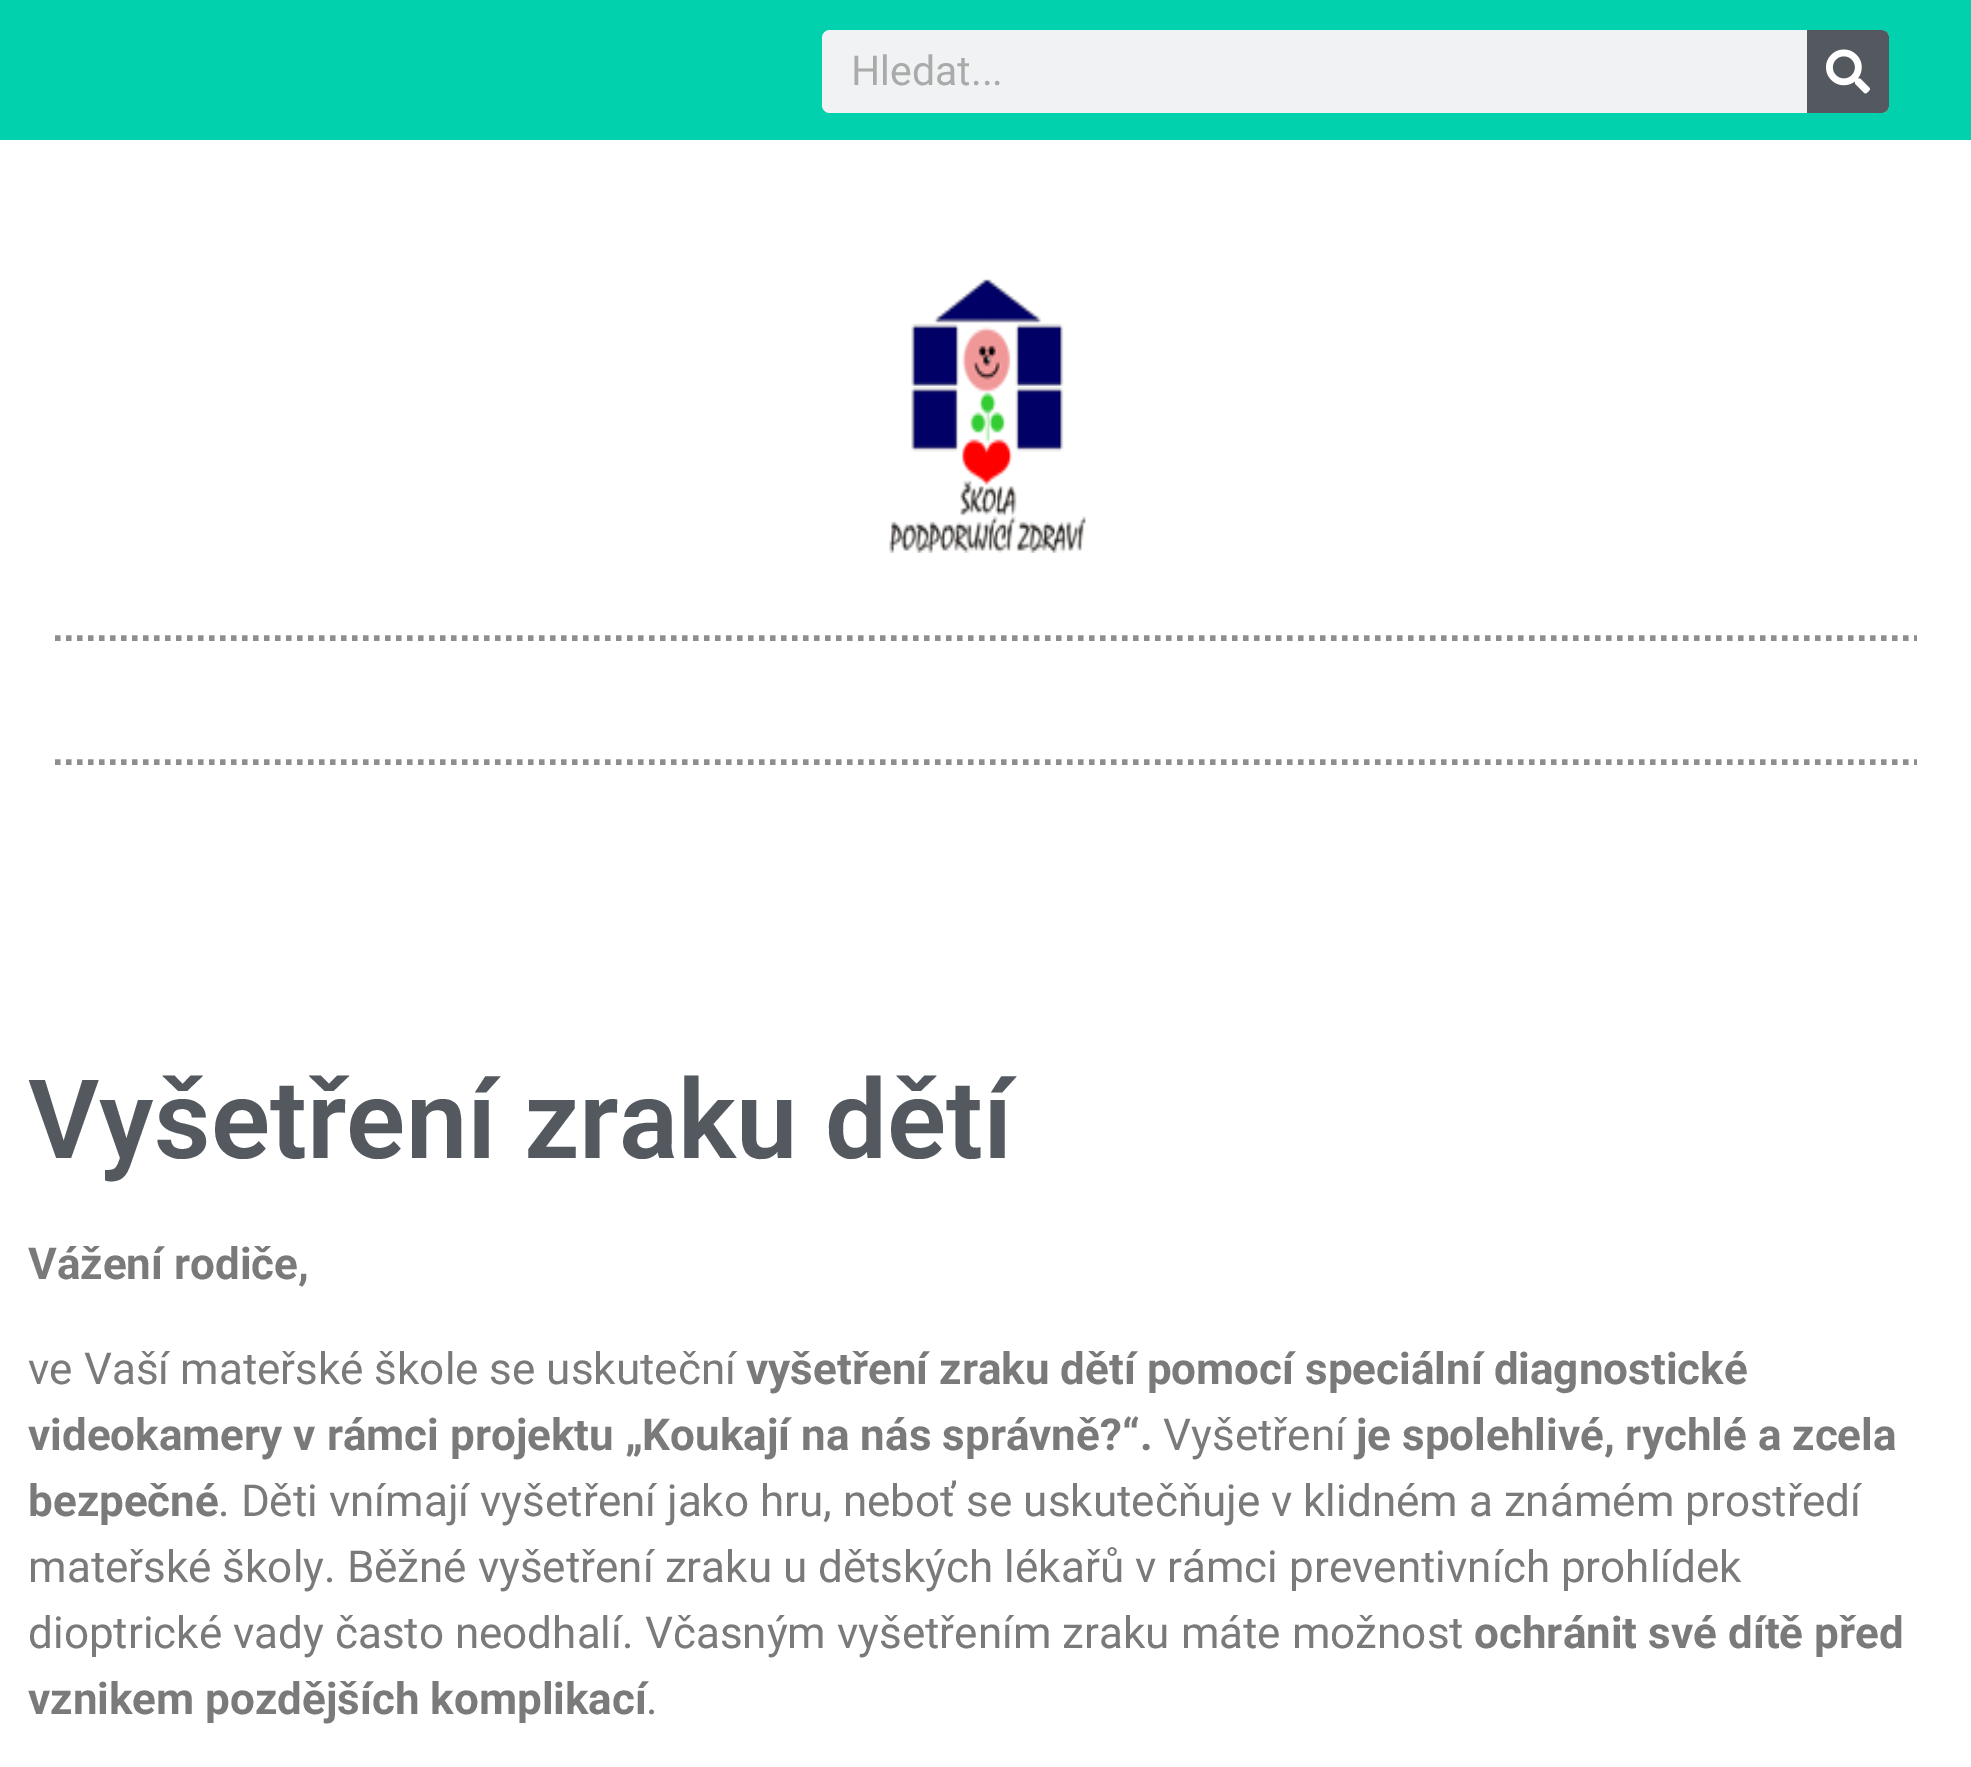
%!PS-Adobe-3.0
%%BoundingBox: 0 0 1971 1767
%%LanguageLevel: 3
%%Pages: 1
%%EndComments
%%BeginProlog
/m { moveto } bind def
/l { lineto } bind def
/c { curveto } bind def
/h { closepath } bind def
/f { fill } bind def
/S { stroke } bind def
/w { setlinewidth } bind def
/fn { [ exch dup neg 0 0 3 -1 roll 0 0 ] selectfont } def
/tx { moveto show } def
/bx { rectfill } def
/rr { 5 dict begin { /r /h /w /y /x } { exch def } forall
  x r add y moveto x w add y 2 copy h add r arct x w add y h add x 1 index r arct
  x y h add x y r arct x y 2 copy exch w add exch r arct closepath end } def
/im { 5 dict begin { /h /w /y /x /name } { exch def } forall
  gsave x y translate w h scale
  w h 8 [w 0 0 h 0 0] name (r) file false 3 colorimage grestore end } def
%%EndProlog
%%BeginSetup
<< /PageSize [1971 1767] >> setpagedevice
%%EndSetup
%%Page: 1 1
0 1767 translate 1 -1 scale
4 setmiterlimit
1 setgray
0 0 1971 1767 bx
0.008 0.82 0.682 setrgbcolor
0 0 1971 140 bx
0.945 0.949 0.953 setrgbcolor
822 30 1067 83 8 rr f
/Roboto-Regular 41 fn
0.667 setgray
(Hledat...) 851 85 tx
0.329 0.349 0.373 setrgbcolor
1807 30 m 1881 30 l 1885.5 30 1889 33.5 1889 38 c 1889 105 l 1889 109.5 1885.5 113 1881 113 c 1807 113 l h f
(image0.raw) 1826 49 44 45 im
(image1.raw) 889 279 197 274 im
0.557 setgray
5.5 w
[5.5 5.5] 0 setdash
55 638 m 1917 638 l S
55 762 m 1917 762 l S
/Roboto-SemiBold 110 fn
0.329 0.349 0.373 setrgbcolor
(Vyšetření zraku dětí) 28 1158 tx
/Roboto-Bold 44 fn
0.478 setgray
(Vážení rodiče,) 28 1279 tx
/Roboto-Regular 44 fn
(ve Vaší mateřské škole se uskuteční) 28 1384 tx
/Roboto-Bold 44 fn
(vyšetření zraku dětí pomocí speciální diagnostické) 746 1384 tx
(videokamery v rámci projektu „Koukají na nás správně?“.) 28 1450 tx
/Roboto-Regular 44 fn
(Vyšetření) 1163 1450 tx
/Roboto-Bold 44 fn
(je spolehlivé, rychlé a zcela) 1356 1450 tx
(bezpečné) 28 1516 tx
/Roboto-Regular 44 fn
(. Děti vnímají vyšetření jako hru, neboť se uskutečňuje v klidném a známém prostředí) 218 1516 tx
(mateřské školy. Běžné vyšetření zraku u dětských lékařů v rámci preventivních prohlídek) 28 1582 tx
(dioptrické vady často neodhalí. Včasným vyšetřením zraku máte možnost) 28 1648 tx
/Roboto-Bold 44 fn
(ochránit své dítě před) 1474 1648 tx
(vznikem pozdějších komplikací) 28 1714 tx
/Roboto-Regular 44 fn
(.) 646 1714 tx
showpage
%%EOF
